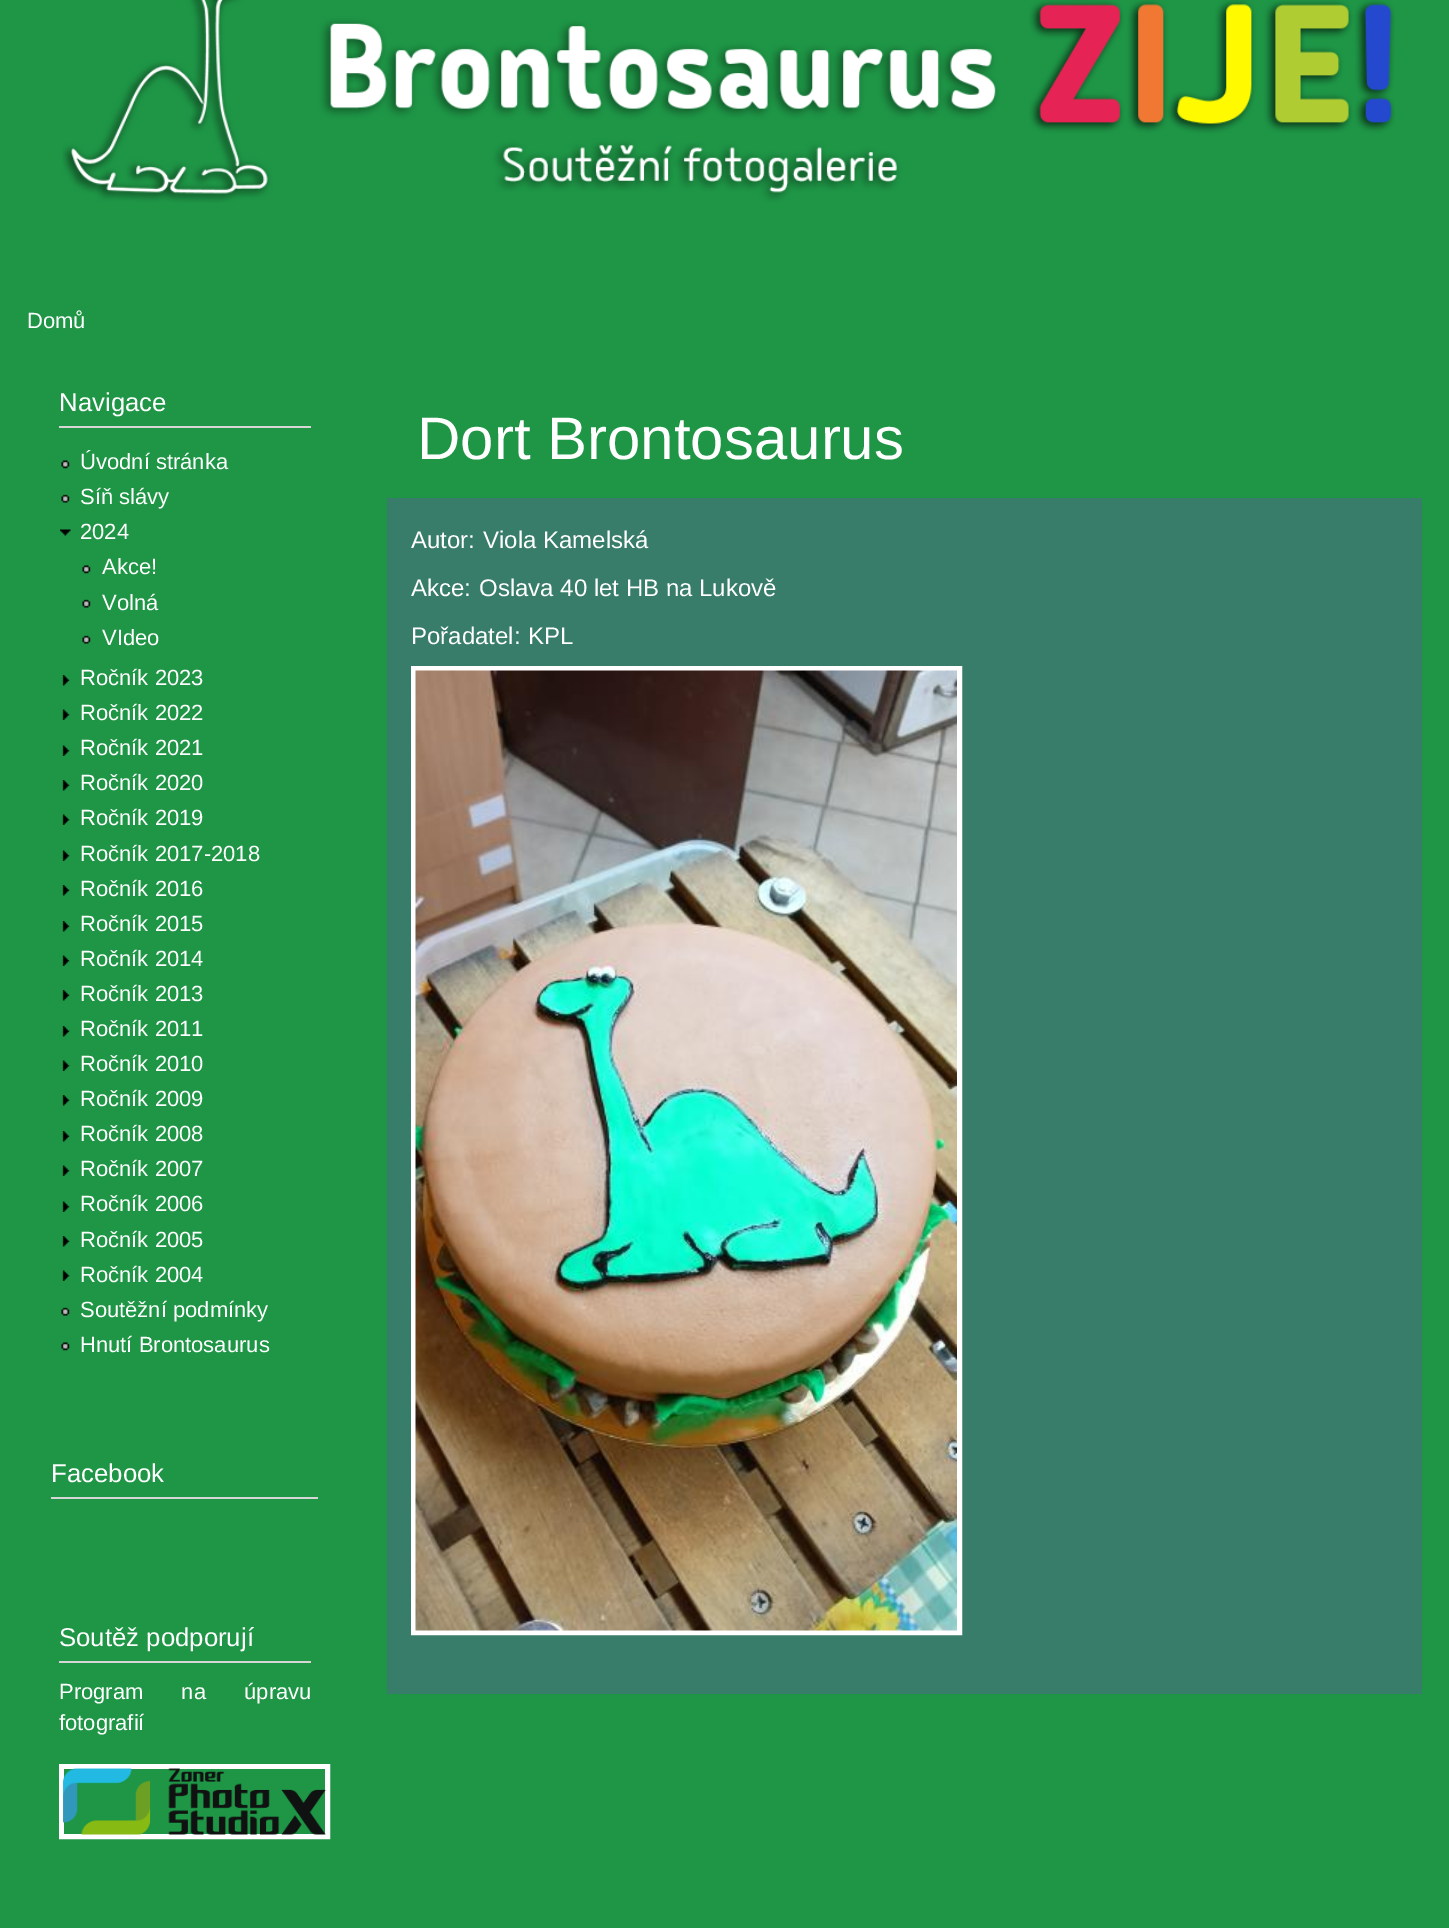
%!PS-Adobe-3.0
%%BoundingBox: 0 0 1449 1928
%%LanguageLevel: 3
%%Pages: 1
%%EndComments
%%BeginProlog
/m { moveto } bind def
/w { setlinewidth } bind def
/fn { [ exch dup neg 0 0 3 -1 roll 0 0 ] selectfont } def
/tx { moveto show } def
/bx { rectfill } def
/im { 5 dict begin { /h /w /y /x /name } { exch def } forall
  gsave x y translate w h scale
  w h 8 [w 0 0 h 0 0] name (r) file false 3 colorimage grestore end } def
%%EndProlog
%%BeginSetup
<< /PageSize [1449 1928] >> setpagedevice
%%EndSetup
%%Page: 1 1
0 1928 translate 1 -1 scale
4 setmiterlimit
0.118 0.588 0.275 setrgbcolor
0 0 1449 1928 bx
(image0.raw) 62 0 1333 203 im
/LiberationSans-Regular 22 fn
1 setgray
(Domů) 27 328 tx
0.839 setgray
59 426 252 2 bx
/LiberationSans-Regular 25.75 fn
1 setgray
(Navigace) 59 411 tx
(image1.raw) 61 460 9 9 im
/LiberationSans-Regular 22 fn
(Úvodní stránka) 80 469 tx
(image2.raw) 61 494 9 9 im
(Síň slávy) 80 504 tx
(image3.raw) 60 529 11 7 im
(2024) 80 539 tx
(image1.raw) 82 565 9 9 im
(Akce!) 102 574 tx
(image2.raw) 82 599 9 9 im
(Volná) 102 610 tx
(image2.raw) 82 635 9 9 im
(VIdeo) 102 645 tx
(image4.raw) 62 675 8 11 im
(Ročník 2023) 80 685 tx
(image5.raw) 62 709 8 11 im
(Ročník 2022) 80 720 tx
(image5.raw) 62 745 8 11 im
(Ročník 2021) 80 755 tx
(image4.raw) 62 780 8 11 im
(Ročník 2020) 80 790 tx
(image5.raw) 62 814 8 11 im
(Ročník 2019) 80 825 tx
(image5.raw) 62 850 8 11 im
(Ročník 2017-2018) 80 861 tx
(image4.raw) 62 885 8 11 im
(Ročník 2016) 80 896 tx
(image4.raw) 62 921 8 11 im
(Ročník 2015) 80 931 tx
(image5.raw) 62 955 8 11 im
(Ročník 2014) 80 966 tx
(image4.raw) 62 990 8 11 im
(Ročník 2013) 80 1001 tx
(image4.raw) 62 1026 8 11 im
(Ročník 2011) 80 1036 tx
(image5.raw) 62 1060 8 11 im
(Ročník 2010) 80 1071 tx
(image4.raw) 62 1095 8 11 im
(Ročník 2009) 80 1106 tx
(image4.raw) 62 1131 8 11 im
(Ročník 2008) 80 1141 tx
(image5.raw) 62 1165 8 11 im
(Ročník 2007) 80 1176 tx
(image5.raw) 62 1201 8 11 im
(Ročník 2006) 80 1211 tx
(image4.raw) 62 1236 8 11 im
(Ročník 2005) 80 1247 tx
(image5.raw) 62 1270 8 11 im
(Ročník 2004) 80 1282 tx
(image2.raw) 61 1307 9 9 im
(Soutěžní podmínky) 80 1317 tx
(image1.raw) 61 1342 9 9 im
(Hnutí Brontosaurus) 80 1352 tx
0.839 setgray
51 1497 267 2 bx
/LiberationSans-Regular 25.75 fn
1 setgray
(Facebook) 51 1482 tx
0.839 setgray
59 1661 252 2 bx
1 setgray
(Soutěž podporují) 59 1646 tx
/LiberationSans-Regular 22 fn
59 1699 m 32 0 32 (Program na úpravu) widthshow
(fotografií) 59 1730 tx
5 w
61.5 1766.5 266 70 rectstroke
(image6.raw) 63 1768 263 67 im
/LiberationSans-Regular 60 fn
(Dort Brontosaurus) 417 459 tx
0.216 0.49 0.412 setrgbcolor
387 498 1035 1196 bx
/LiberationSans-Regular 24 fn
1 setgray
(Autor:) 411 548 tx
(Viola Kamelská) 483 548 tx
(Akce:) 411 596 tx
(Oslava 40 let HB na Lukově) 479 596 tx
(Pořadatel:) 411 644 tx
(KPL) 528 644 tx
413.5 668.5 546 964 rectstroke
(image7.raw) 415 670 542 961 im
showpage
%%EOF
